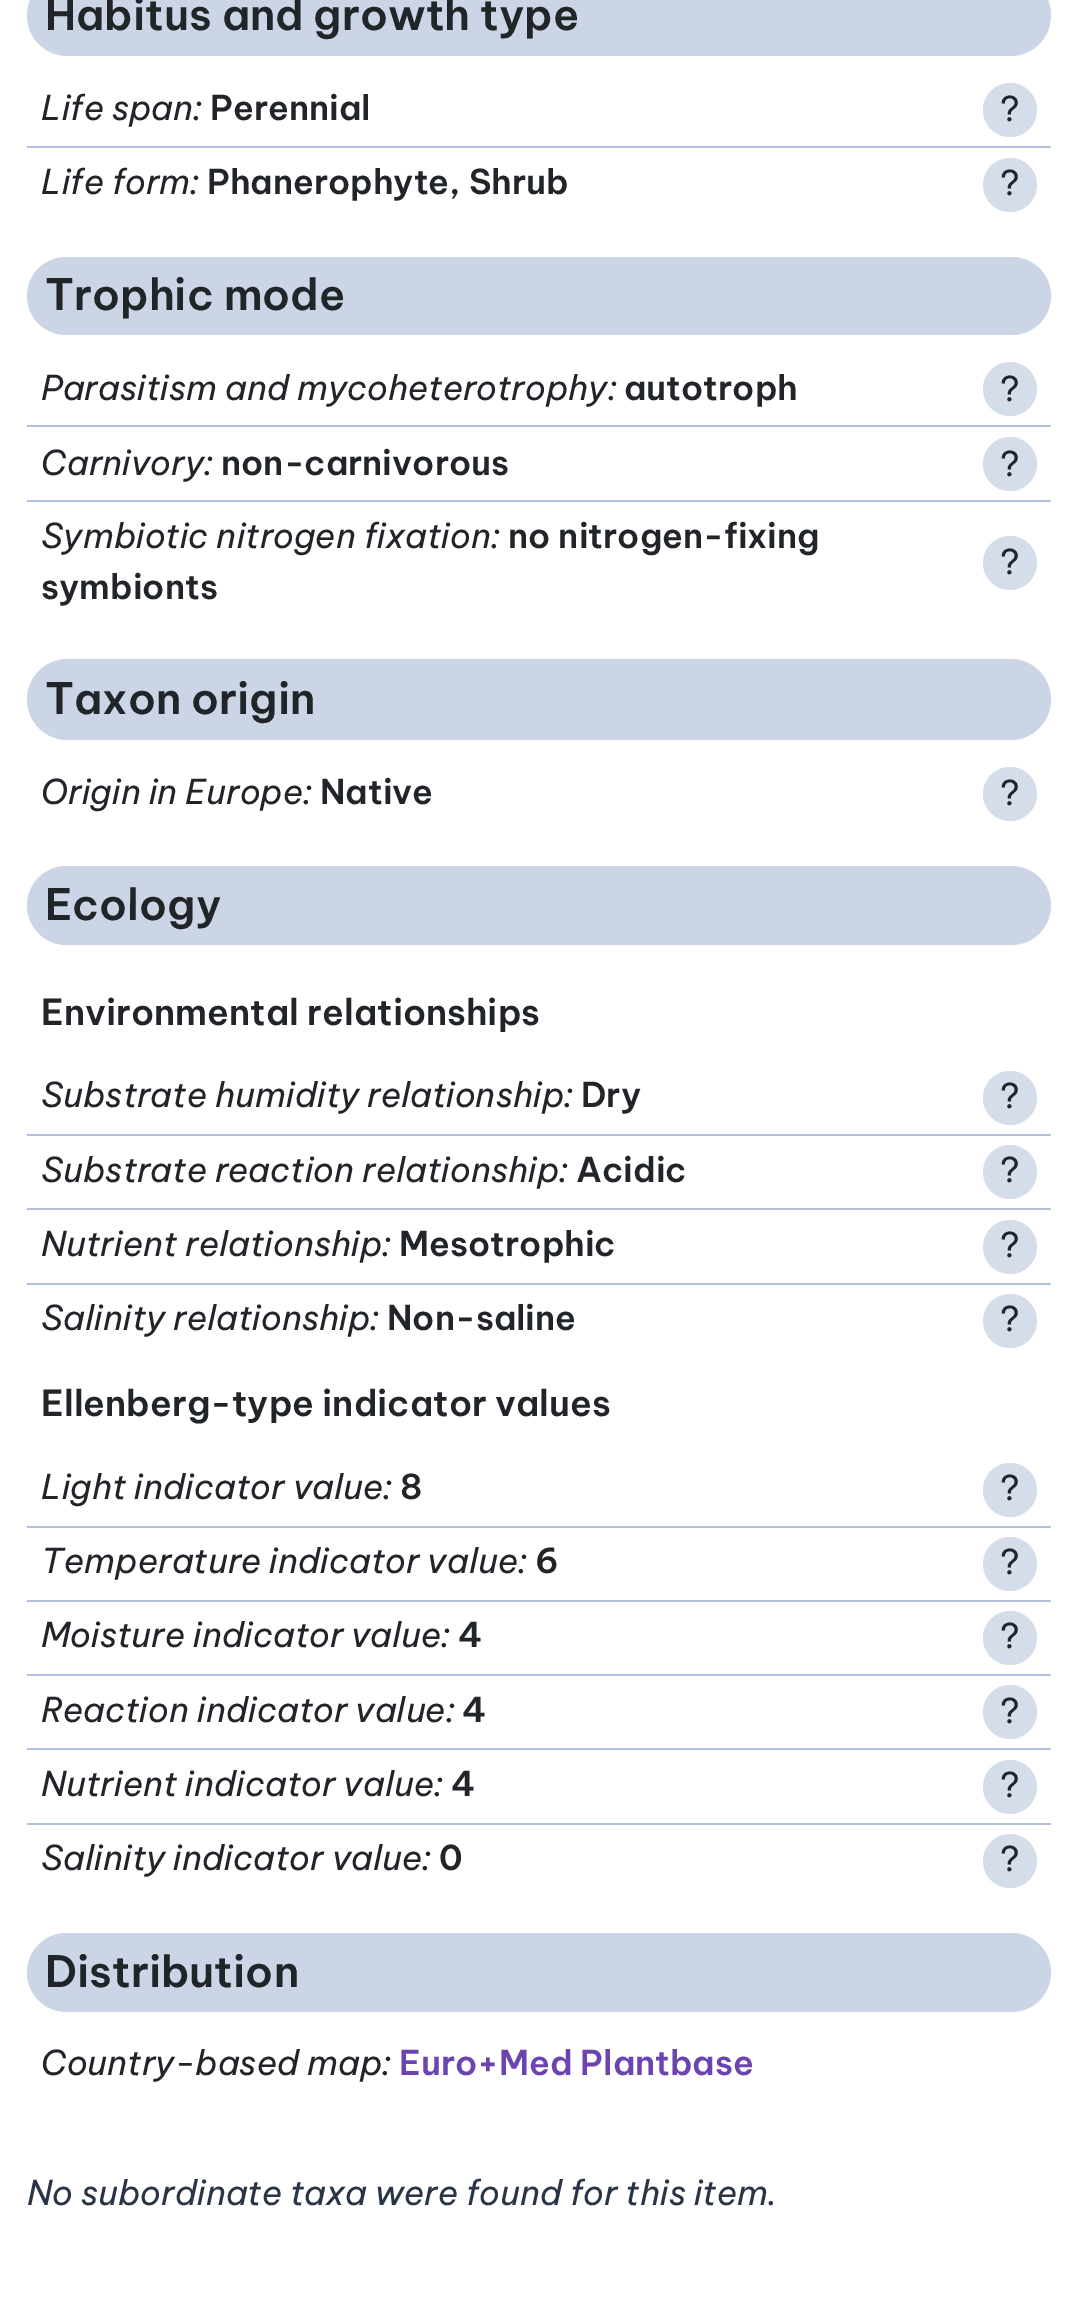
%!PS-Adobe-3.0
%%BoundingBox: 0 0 1076 2300
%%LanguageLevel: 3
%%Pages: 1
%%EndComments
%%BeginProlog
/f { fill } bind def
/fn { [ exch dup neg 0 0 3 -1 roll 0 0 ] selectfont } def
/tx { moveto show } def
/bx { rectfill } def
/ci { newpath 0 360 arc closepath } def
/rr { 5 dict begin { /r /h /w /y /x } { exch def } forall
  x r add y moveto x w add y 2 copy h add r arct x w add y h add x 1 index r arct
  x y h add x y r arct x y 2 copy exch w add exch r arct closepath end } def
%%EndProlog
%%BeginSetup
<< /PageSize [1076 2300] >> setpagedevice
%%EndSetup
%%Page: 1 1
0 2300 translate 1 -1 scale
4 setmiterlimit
1 setgray
0 0 1076 2300 bx
0.796 0.835 0.902 setrgbcolor
27 -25 1024 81 40.5 rr f
/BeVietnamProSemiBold-SemiBold 43.1 fn
0.129 0.145 0.161 setrgbcolor
(Habitus and growth type) 45 30 tx
/BeVietnamPro-Italic 34.2 fn
(Life span:) 41 120 tx
/BeVietnamProSemiBold-SemiBold 34.2 fn
(Perennial) 210 120 tx
0.835 0.867 0.922 setrgbcolor
1010 110 27 ci f
/BeVietnamPro-Regular 34.2 fn
0.129 0.145 0.161 setrgbcolor
(?) 1000 121 tx
0.698 0.757 0.859 setrgbcolor
27 146 1024 2 bx
/BeVietnamPro-Italic 34.2 fn
0.129 0.145 0.161 setrgbcolor
(Life form:) 41 194 tx
/BeVietnamProSemiBold-SemiBold 34.2 fn
(Phanerophyte, Shrub) 207 194 tx
0.835 0.867 0.922 setrgbcolor
1010 185 27 ci f
/BeVietnamPro-Regular 34.2 fn
0.129 0.145 0.161 setrgbcolor
(?) 1000 195 tx
0.796 0.835 0.902 setrgbcolor
27 257 1024 78 39 rr f
/BeVietnamProSemiBold-SemiBold 43.1 fn
0.129 0.145 0.161 setrgbcolor
(Trophic mode) 45 310 tx
/BeVietnamPro-Italic 34.2 fn
(Parasitism and mycoheterotrophy) 41 400 tx
(:) 608 400 tx
/BeVietnamProSemiBold-SemiBold 34.2 fn
(autotroph) 624 400 tx
0.835 0.867 0.922 setrgbcolor
1010 389 27 ci f
/BeVietnamPro-Regular 34.2 fn
0.129 0.145 0.161 setrgbcolor
(?) 1000 401 tx
0.698 0.757 0.859 setrgbcolor
27 425 1024 2 bx
/BeVietnamPro-Italic 34.2 fn
0.129 0.145 0.161 setrgbcolor
(Carnivory:) 41 475 tx
/BeVietnamProSemiBold-SemiBold 34.2 fn
(non-carnivorous) 221 475 tx
0.835 0.867 0.922 setrgbcolor
1010 464 27 ci f
/BeVietnamPro-Regular 34.2 fn
0.129 0.145 0.161 setrgbcolor
(?) 1000 476 tx
0.698 0.757 0.859 setrgbcolor
27 500 1024 2 bx
/BeVietnamPro-Italic 34.2 fn
0.129 0.145 0.161 setrgbcolor
(Symbiotic nitrogen fixation) 41 548 tx
(:) 491 548 tx
/BeVietnamProSemiBold-SemiBold 34.2 fn
(no nitrogen-fixing) 508 548 tx
(symbionts) 41 599 tx
0.835 0.867 0.922 setrgbcolor
1010 563 27 ci f
/BeVietnamPro-Regular 34.2 fn
0.129 0.145 0.161 setrgbcolor
(?) 1000 574 tx
0.796 0.835 0.902 setrgbcolor
27 659 1024 81 40.5 rr f
/BeVietnamProSemiBold-SemiBold 43.1 fn
0.129 0.145 0.161 setrgbcolor
(Taxon origin) 45 714 tx
/BeVietnamPro-Italic 34.2 fn
(Origin in Europe:) 41 804 tx
/BeVietnamProSemiBold-SemiBold 34.2 fn
(Native) 320 804 tx
0.835 0.867 0.922 setrgbcolor
1010 794 27 ci f
/BeVietnamPro-Regular 34.2 fn
0.129 0.145 0.161 setrgbcolor
(?) 1000 805 tx
0.796 0.835 0.902 setrgbcolor
27 866 1024 79 39.5 rr f
/BeVietnamProSemiBold-SemiBold 43.1 fn
0.129 0.145 0.161 setrgbcolor
(Ecology) 45 920 tx
/BeVietnamProSemiBold-SemiBold 35.75 fn
(Environmental relationships) 41 1025 tx
/BeVietnamPro-Italic 34.2 fn
(Substrate humidity relationship) 41 1107 tx
(:) 564 1107 tx
/BeVietnamProSemiBold-SemiBold 34.2 fn
(Dry) 581 1107 tx
0.835 0.867 0.922 setrgbcolor
1010 1098 27 ci f
/BeVietnamPro-Regular 34.2 fn
0.129 0.145 0.161 setrgbcolor
(?) 1000 1108 tx
0.698 0.757 0.859 setrgbcolor
27 1134 1024 2 bx
/BeVietnamPro-Italic 34.2 fn
0.129 0.145 0.161 setrgbcolor
(Substrate reaction relationship) 41 1182 tx
(:) 559 1182 tx
/BeVietnamProSemiBold-SemiBold 34.2 fn
(Acidic) 576 1182 tx
0.835 0.867 0.922 setrgbcolor
1010 1172 27 ci f
/BeVietnamPro-Regular 34.2 fn
0.129 0.145 0.161 setrgbcolor
(?) 1000 1182 tx
0.698 0.757 0.859 setrgbcolor
27 1208 1024 2 bx
/BeVietnamPro-Italic 34.2 fn
0.129 0.145 0.161 setrgbcolor
(Nutrient relationship:) 41 1256 tx
/BeVietnamProSemiBold-SemiBold 34.2 fn
(Mesotrophic) 399 1256 tx
0.835 0.867 0.922 setrgbcolor
1010 1247 27 ci f
/BeVietnamPro-Regular 34.2 fn
0.129 0.145 0.161 setrgbcolor
(?) 1000 1257 tx
0.698 0.757 0.859 setrgbcolor
27 1283 1024 2 bx
/BeVietnamPro-Italic 34.2 fn
0.129 0.145 0.161 setrgbcolor
(Salinity relationship:) 41 1330 tx
/BeVietnamProSemiBold-SemiBold 34.2 fn
(Non-saline) 387 1330 tx
0.835 0.867 0.922 setrgbcolor
1010 1321 27 ci f
/BeVietnamPro-Regular 34.2 fn
0.129 0.145 0.161 setrgbcolor
(?) 1000 1331 tx
/BeVietnamProSemiBold-SemiBold 35.75 fn
(Ellenberg-type indicator values) 41 1416 tx
/BeVietnamPro-Italic 34.2 fn
(Light indicator value:) 41 1499 tx
/BeVietnamProSemiBold-SemiBold 34.2 fn
(8) 400 1499 tx
0.835 0.867 0.922 setrgbcolor
1010 1490 27 ci f
/BeVietnamPro-Regular 34.2 fn
0.129 0.145 0.161 setrgbcolor
(?) 1000 1500 tx
0.698 0.757 0.859 setrgbcolor
27 1526 1024 2 bx
/BeVietnamPro-Italic 34.2 fn
0.129 0.145 0.161 setrgbcolor
(Temperature indicator value) 41 1573 tx
(:) 518 1573 tx
/BeVietnamProSemiBold-SemiBold 34.2 fn
(6) 535 1573 tx
0.835 0.867 0.922 setrgbcolor
1010 1564 27 ci f
/BeVietnamPro-Regular 34.2 fn
0.129 0.145 0.161 setrgbcolor
(?) 1000 1574 tx
0.698 0.757 0.859 setrgbcolor
27 1600 1024 2 bx
/BeVietnamPro-Italic 34.2 fn
0.129 0.145 0.161 setrgbcolor
(Moisture indicator value) 41 1647 tx
(:) 441 1647 tx
/BeVietnamProSemiBold-SemiBold 34.2 fn
(4) 458 1647 tx
0.835 0.867 0.922 setrgbcolor
1010 1638 27 ci f
/BeVietnamPro-Regular 34.2 fn
0.129 0.145 0.161 setrgbcolor
(?) 1000 1648 tx
0.698 0.757 0.859 setrgbcolor
27 1674 1024 2 bx
/BeVietnamPro-Italic 34.2 fn
0.129 0.145 0.161 setrgbcolor
(Reaction indicator value) 41 1722 tx
(:) 446 1722 tx
/BeVietnamProSemiBold-SemiBold 34.2 fn
(4) 462 1722 tx
0.835 0.867 0.922 setrgbcolor
1010 1712 27 ci f
/BeVietnamPro-Regular 34.2 fn
0.129 0.145 0.161 setrgbcolor
(?) 1000 1723 tx
0.698 0.757 0.859 setrgbcolor
27 1748 1024 2 bx
/BeVietnamPro-Italic 34.2 fn
0.129 0.145 0.161 setrgbcolor
(Nutrient indicator value) 41 1796 tx
(:) 434 1796 tx
/BeVietnamProSemiBold-SemiBold 34.2 fn
(4) 451 1796 tx
0.835 0.867 0.922 setrgbcolor
1010 1787 27 ci f
/BeVietnamPro-Regular 34.2 fn
0.129 0.145 0.161 setrgbcolor
(?) 1000 1797 tx
0.698 0.757 0.859 setrgbcolor
27 1823 1024 2 bx
/BeVietnamPro-Italic 34.2 fn
0.129 0.145 0.161 setrgbcolor
(Salinity indicator value:) 41 1870 tx
/BeVietnamProSemiBold-SemiBold 34.2 fn
(0) 439 1870 tx
0.835 0.867 0.922 setrgbcolor
1010 1861 27 ci f
/BeVietnamPro-Regular 34.2 fn
0.129 0.145 0.161 setrgbcolor
(?) 1000 1871 tx
0.796 0.835 0.902 setrgbcolor
27 1933 1024 79 39.5 rr f
/BeVietnamProSemiBold-SemiBold 43.1 fn
0.129 0.145 0.161 setrgbcolor
(Distribution) 45 1987 tx
/BeVietnamPro-Italic 34.2 fn
(Country-based map:) 41 2075 tx
/BeVietnamProSemiBold-SemiBold 34.2 fn
0.424 0.267 0.686 setrgbcolor
(Euro+Med Plantbase) 399 2075 tx
/BeVietnamPro-Italic 34.2 fn
0.161 0.208 0.271 setrgbcolor
(No subordinate taxa were found for this item.) 27 2205 tx
showpage
%%EOF
